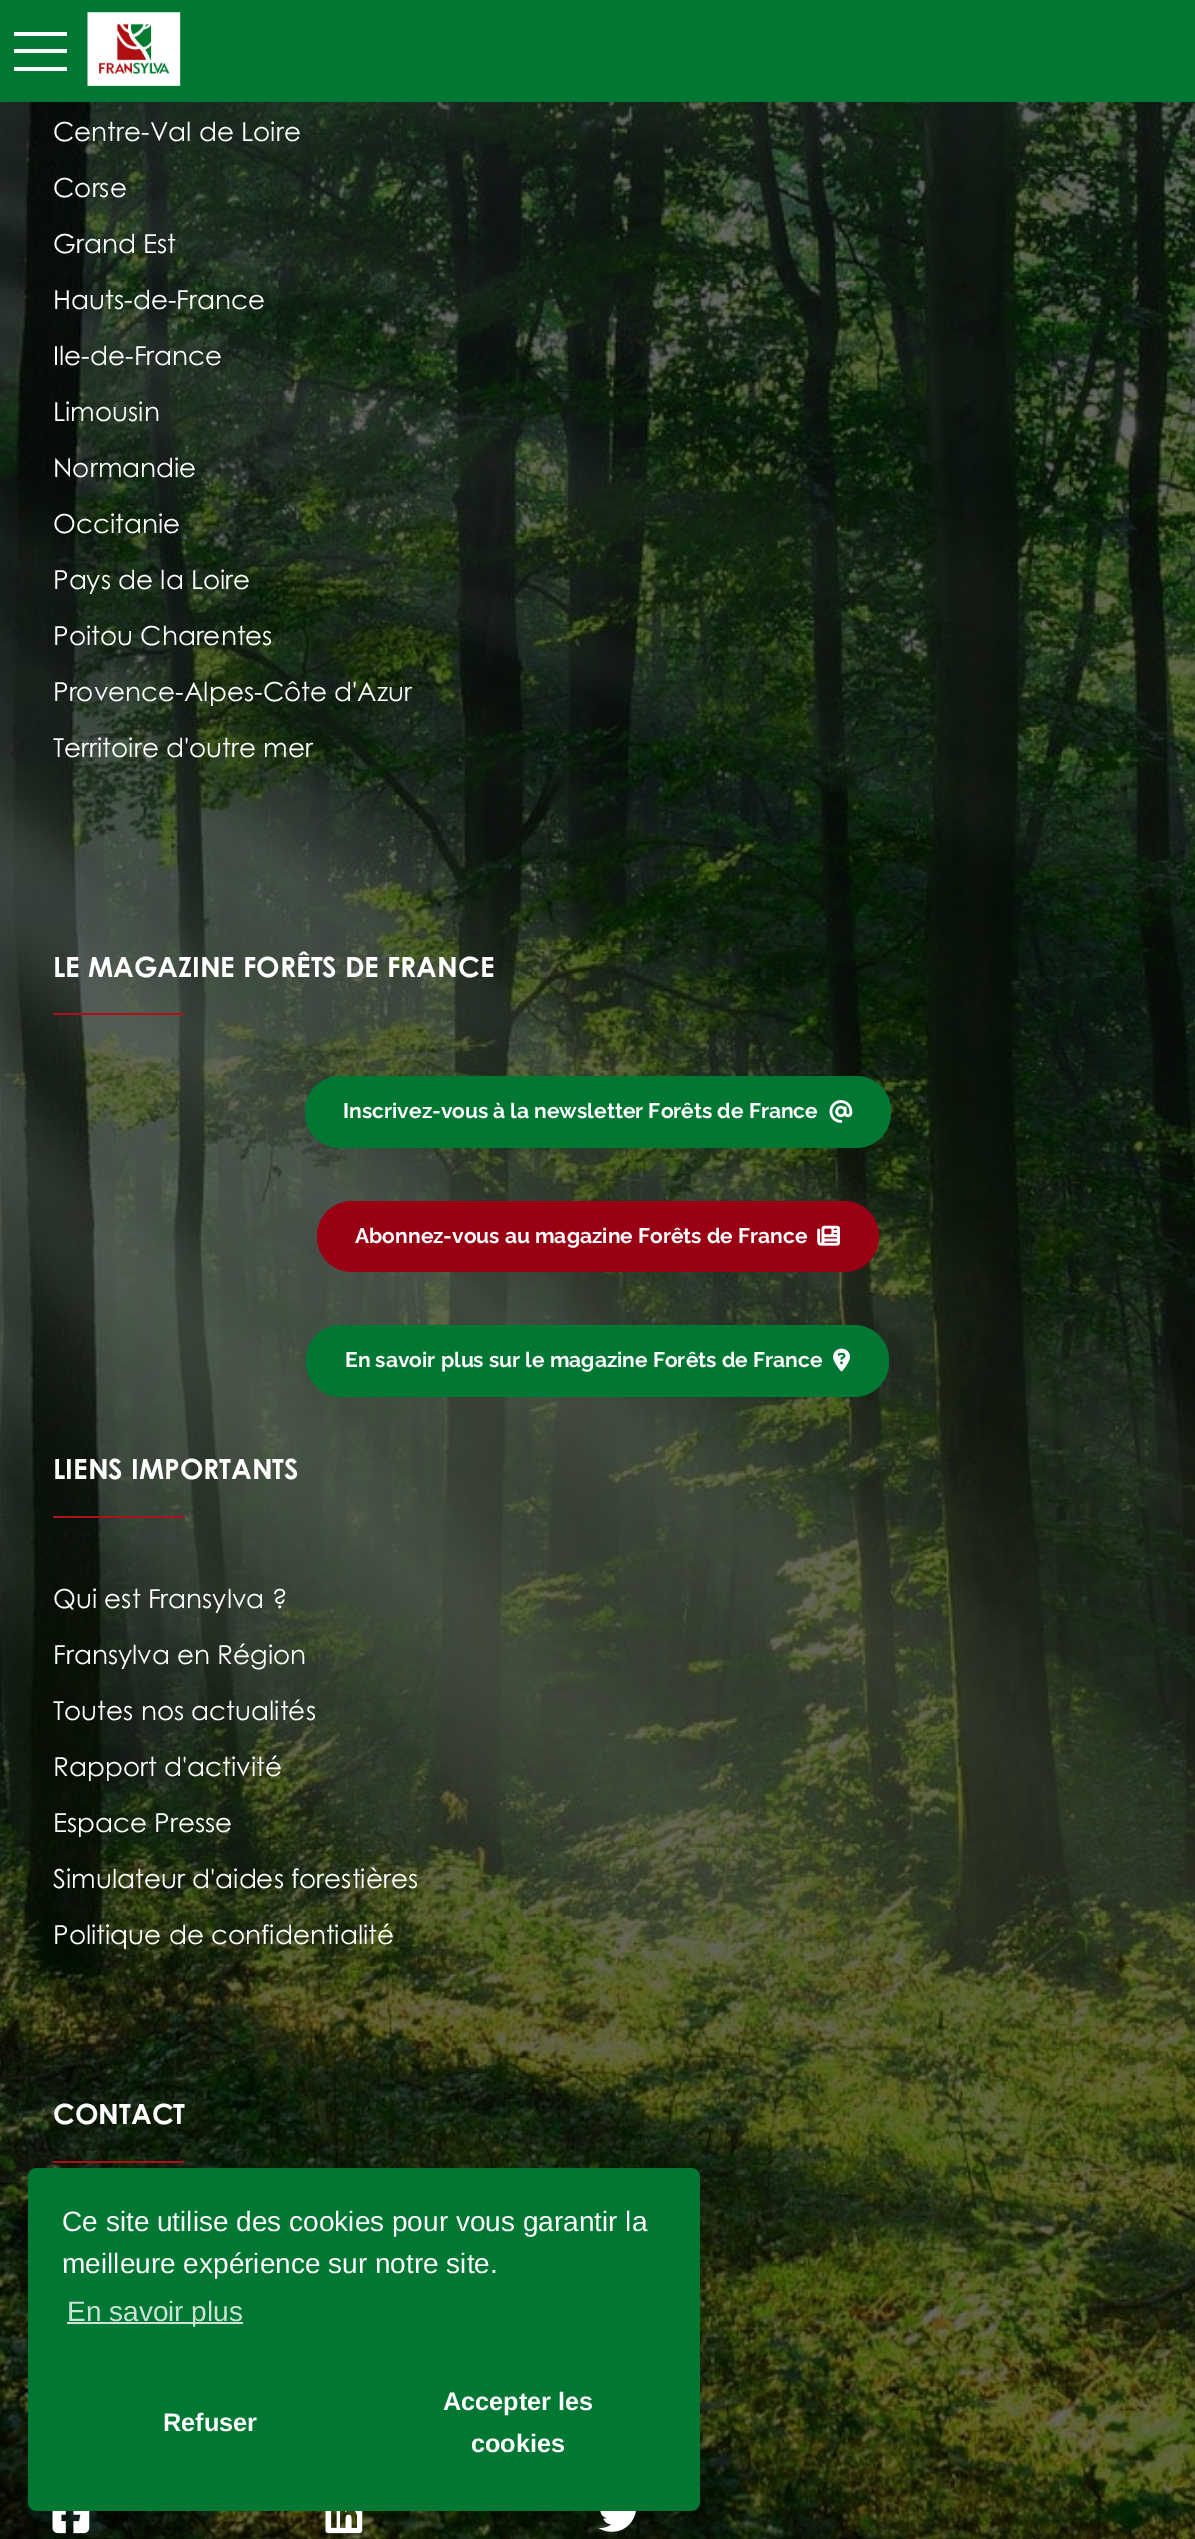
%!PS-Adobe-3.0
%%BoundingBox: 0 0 1195 2539
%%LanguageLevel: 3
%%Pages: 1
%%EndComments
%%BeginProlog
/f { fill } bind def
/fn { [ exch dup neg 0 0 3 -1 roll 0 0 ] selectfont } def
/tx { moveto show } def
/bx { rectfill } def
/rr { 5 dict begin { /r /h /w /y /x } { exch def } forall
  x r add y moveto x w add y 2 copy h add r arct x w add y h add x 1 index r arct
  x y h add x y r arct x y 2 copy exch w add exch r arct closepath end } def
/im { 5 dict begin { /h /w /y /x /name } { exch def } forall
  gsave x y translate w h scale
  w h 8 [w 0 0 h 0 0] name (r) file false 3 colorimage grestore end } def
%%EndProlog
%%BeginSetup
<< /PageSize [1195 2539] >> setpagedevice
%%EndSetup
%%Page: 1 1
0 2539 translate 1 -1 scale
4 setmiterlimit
1 setgray
0 0 1195 2539 bx
0 0.471 0.2 setrgbcolor
0 0 1195 102 bx
1 setgray
14 49 53 4 bx
14 32 53 4 bx
14 67 53 4 bx
(image0.raw) 87 12 94 74 im
(image1.raw) 0 102 1195 2437 im
/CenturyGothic-Regular 26.25 fn
(Centre-Val de Loire) 53 141 tx
(Corse) 53 197 tx
(Grand Est) 53 253 tx
(Hauts-de-France) 53 309 tx
(Ile-de-France) 53 365 tx
(Limousin) 53 421 tx
(Normandie) 53 477 tx
(Occitanie) 53 533 tx
(Pays de la Loire) 53 589 tx
(Poitou Charentes) 53 645 tx
(Provence-Alpes-Côte d'Azur) 53 701 tx
(Territoire d'outre mer) 53 757 tx
/CenturyGothic-Bold 28 fn
(LE MAGAZINE FORÊTS DE FRANCE) 53 977 tx
0.675 0.075 0.098 setrgbcolor
53 1013 131 2 bx
0 0.471 0.2 setrgbcolor
305 1076 586 72 35 rr f
/Raleway-Bold 21 fn
1 setgray
(Inscrivez-vous à la newsletter Forêts de France) 343 1118 tx
(image2.raw) 829 1100 24 23 im
0.604 0 0.078 setrgbcolor
317 1201 562 71 35 rr f
1 setgray
(Abonnez-vous au magazine Forêts de France) 355 1243 tx
(image3.raw) 817 1225 23 21 im
0 0.471 0.2 setrgbcolor
306 1325 583 72 35 rr f
1 setgray
(En savoir plus sur le magazine Forêts de France) 345 1367 tx
(image4.raw) 833 1348 17 24 im
/CenturyGothic-Bold 28 fn
(LIENS IMPORTANTS) 53 1479 tx
0.675 0.075 0.098 setrgbcolor
53 1516 131 2 bx
/CenturyGothic-Regular 26.25 fn
1 setgray
(Qui est Fransylva ?) 53 1608 tx
(Fransylva en Région) 53 1664 tx
(Toutes nos actualités) 53 1720 tx
(Rapport d'activité) 53 1776 tx
(Espace Presse) 53 1832 tx
(Simulateur d'aides forestières) 53 1888 tx
(Politique de confidentialité) 53 1944 tx
/CenturyGothic-Bold 28 fn
(CONTACT) 53 2124 tx
0.675 0.075 0.098 setrgbcolor
53 2161 131 2 bx
(image5.raw) 52 2511 38 23 im
(image6.raw) 325 2511 38 23 im
(image7.raw) 598 2511 38 21 im
0 0.471 0.2 setrgbcolor
28 2168 672 343 9 rr f
/LiberationSans-Regular 28 fn
1 setgray
(Ce site utilise des cookies pour vous garantir la) 62 2231 tx
(meilleure expérience sur notre site.) 62 2273 tx
0.8 0.894 0.839 setrgbcolor
67 2322 176 2 bx
(En savoir plus) 67 2321 tx
/LiberationSans-Bold 25.25 fn
1 setgray
(Refuser) 163 2431 tx
(Accepter les) 443 2410 tx
(cookies) 471 2452 tx
showpage
%%EOF
